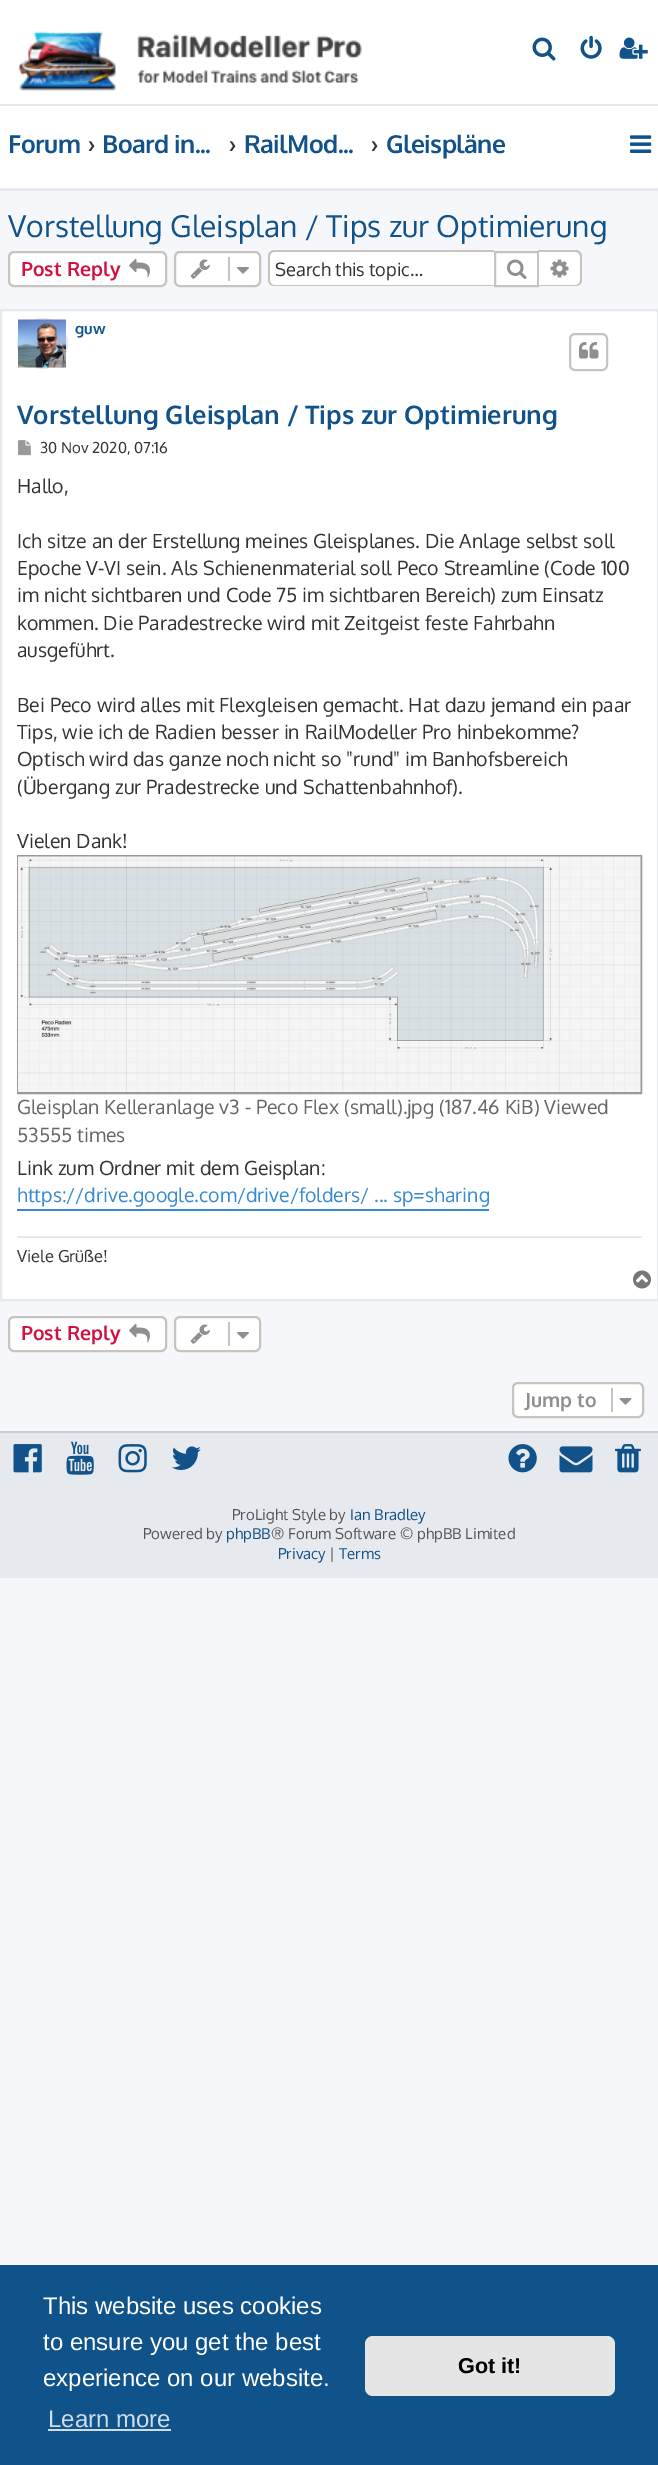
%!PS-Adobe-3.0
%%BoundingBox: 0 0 658 2465
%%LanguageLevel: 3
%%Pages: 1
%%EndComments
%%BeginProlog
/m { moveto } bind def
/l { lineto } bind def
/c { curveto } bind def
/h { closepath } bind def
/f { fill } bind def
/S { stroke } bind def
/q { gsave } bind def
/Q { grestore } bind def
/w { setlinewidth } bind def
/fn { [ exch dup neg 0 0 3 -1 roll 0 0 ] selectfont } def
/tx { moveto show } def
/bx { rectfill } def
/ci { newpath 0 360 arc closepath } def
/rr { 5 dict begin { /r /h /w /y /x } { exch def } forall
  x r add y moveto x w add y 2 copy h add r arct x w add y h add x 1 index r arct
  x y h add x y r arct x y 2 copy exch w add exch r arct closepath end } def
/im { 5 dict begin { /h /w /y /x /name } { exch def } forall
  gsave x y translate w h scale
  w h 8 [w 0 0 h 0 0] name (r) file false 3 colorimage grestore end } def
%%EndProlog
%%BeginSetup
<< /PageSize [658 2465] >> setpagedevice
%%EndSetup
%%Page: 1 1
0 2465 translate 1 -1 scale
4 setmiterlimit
0.961 0.969 0.98 setrgbcolor
0 0 658 2465 bx
1 setgray
0 0 658 104 bx
0.902 0.914 0.929 setrgbcolor
0 104 658 2 bx
(image0.raw) 19 31 343 60 im
(image1.raw) 532 37 24 24 im
(image2.raw) 580 35 22 24 im
(image3.raw) 619 37 29 22 im
1 setgray
0 106 658 82 bx
0.902 0.914 0.929 setrgbcolor
0 188 658 3 bx
/Oxygen-Bold 24.75 fn
0.063 0.322 0.537 setrgbcolor
8 153 m -0.5 0 (Forum) ashow
0.2 setgray
(›) 88 153 tx
0.063 0.322 0.537 setrgbcolor
102 153 m -0.6 0 (Board in...) ashow
0.2 setgray
(›) 229 153 tx
0.063 0.322 0.537 setrgbcolor
244 153 m -0.6 0 (RailMod...) ashow
0.2 setgray
(›) 371 153 tx
0.063 0.322 0.537 setrgbcolor
386 153 m -0.6 0 (Gleispläne) ashow
(image4.raw) 630 135 22 18 im
/Oxygen-Regular 30 fn
(Vorstellung Gleisplan / Tips zur Optimierung) 8 237 tx
1 setgray
9 252 157 34 5 rr q f Q
0.78 0.765 0.749 setrgbcolor
2 w
S
/Oxygen-Bold 19.5 fn
0.827 0.067 0.255 setrgbcolor
(Post Reply) 21 276 tx
(image5.raw) 129 258 21 20 im
1 setgray
175 252 85 34 5 rr q f Q
0.78 0.765 0.749 setrgbcolor
S
(image6.raw) 190 259 20 20 im
228 257 2 24 bx
(image7.raw) 237 267 12 7 im
1 setgray
275 252 m 494 252 l 494 285 l 275 285 l 272 285 270 283 270 280 c 270 257 l 270 254 272 252 275 252 c h f
0.78 0.765 0.749 setrgbcolor
274 250 m 494 250 l 494 286 l 274 286 l 271 286 268 284 268 280 c 268 256 l 268 253 271 250 274 250 c h 274 252 m 494 252 l 494 285 l 274 285 l 272 285 270 283 270 280 c 270 256 l 270 254 272 252 274 252 c h eofill
/Oxygen-Regular 18.25 fn
0.2 setgray
(Search this topic…) 275 276 tx
1 setgray
495 252 m 538 252 l 538 286 l 495 286 l h q f Q
0.78 0.765 0.749 setrgbcolor
S
(image8.raw) 507 259 20 20 im
1 setgray
539 252 m 576 252 l 579 252 581 254 581 257 c 581 280 l 581 283 579 285 576 285 c 539 285 l h f
0.78 0.765 0.749 setrgbcolor
538 250 m 576 250 l 579 250 582 253 582 256 c 582 280 l 582 284 579 286 576 286 c 538 286 l h 538 252 m 576 252 l 578 252 580 254 580 256 c 580 280 l 580 283 578 285 576 285 c 538 285 l h eofill
(image9.raw) 550 259 19 19 im
1 setgray
1 310 m 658 310 l 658 1300 l 1 1300 l h q f Q
0.902 0.914 0.929 setrgbcolor
S
42.5 343.5 24.5 ci S
(image10.raw) 18 319 48 49 im
/Oxygen-Bold 15 fn
0.063 0.322 0.537 setrgbcolor
(guw) 75 334 tx
0.78 0.765 0.749 setrgbcolor
570 334 37 36 5 rr S
(image11.raw) 579 342 20 17 im
/Oxygen-Bold 25.5 fn
0.063 0.322 0.537 setrgbcolor
(Vorstellung Gleisplan / Tips zur Optimierung) 17 424 tx
(image12.raw) 18 440 13 16 im
/Oxygen-Regular 15 fn
0.2 setgray
(30 Nov 2020, 07:16) 40 453 tx
/Oxygen-Regular 19.5 fn
(Hallo,) 17 493 tx
(Ich sitze an der Erstellung meines Gleisplanes. Die Anlage selbst soll) 17 548 tx
(Epoche V-VI sein. Als Schienenmaterial soll Peco Streamline \(Code 100) 17 575 tx
(im nicht sichtbaren und Code 75 im sichtbaren Bereich\) zum Einsatz) 17 602 tx
(kommen. Die Paradestrecke wird mit Zeitgeist feste Fahrbahn) 17 630 tx
(ausgeführt.) 17 657 tx
(Bei Peco wird alles mit Flexgleisen gemacht. Hat dazu jemand ein paar) 17 712 tx
(Tips, wie ich de Radien besser in RailModeller Pro hinbekomme?) 17 739 tx
(Optisch wird das ganze noch nicht so "rund" im Banhofsbereich) 17 766 tx
(\(Übergang zur Pradestrecke und Schattenbahnhof\).) 17 794 tx
(Vielen Dank!) 17 848 tx
0.6 setgray
18 856 623 237 rectstroke
(image13.raw) 18 856 623 236 im
0.4 setgray
(Gleisplan Kelleranlage v3 - Peco Flex \(small\).jpg \(187.46 KiB\) Viewed) 17 1114 tx
(53555 times) 17 1142 tx
0.2 setgray
(Link zum Ordner mit dem Geisplan:) 17 1175 tx
0.212 0.541 0.824 setrgbcolor
17 1209 472 2 bx
(https://drive.google.com/drive/folders/ ... sp=sharing) 17 1202 tx
0.902 0.914 0.929 setrgbcolor
17 1236 625 2 bx
/Oxygen-Regular 16.5 fn
0.2 setgray
(Viele Grüße!) 17 1262 tx
(image14.raw) 633 1270 18 19 im
1 setgray
9 1317 157 34 5 rr q f Q
0.78 0.765 0.749 setrgbcolor
S
/Oxygen-Bold 19.5 fn
0.827 0.067 0.255 setrgbcolor
(Post Reply) 21 1340 tx
(image5.raw) 129 1323 21 20 im
1 setgray
175 1317 85 34 5 rr q f Q
0.78 0.765 0.749 setrgbcolor
S
(image6.raw) 190 1324 20 20 im
228 1322 2 24 bx
(image7.raw) 237 1332 12 7 im
1 setgray
513 1383 130 34 5 rr q f Q
0.78 0.765 0.749 setrgbcolor
S
0.561 setgray
(Jump to) 525 1407 tx
0.78 0.765 0.749 setrgbcolor
611 1388 2 24 bx
(image15.raw) 619 1398 13 7 im
0.902 0.914 0.929 setrgbcolor
0 1433 658 145 bx
0.8 setgray
0 1431 658 2 bx
(image16.raw) 13 1444 29 29 im
(image17.raw) 66 1441 28 34 im
(image18.raw) 118 1444 29 29 im
(image19.raw) 172 1446 29 24 im
(image20.raw) 508 1444 29 29 im
(image21.raw) 559 1446 34 27 im
(image22.raw) 615 1444 26 29 im
/Oxygen-Regular 15 fn
0.333 setgray
(ProLight Style by) 232 1520 tx
0.063 0.322 0.537 setrgbcolor
(Ian Bradley) 350 1520 tx
0.333 setgray
(Powered by) 143 1539 tx
0.063 0.322 0.537 setrgbcolor
(phpBB) 226 1539 tx
0.333 setgray
(® Forum Software © phpBB Limited) 271 1539 tx
0.063 0.322 0.537 setrgbcolor
(Privacy) 278 1559 tx
0.333 setgray
(|) 329 1559 tx
0.063 0.322 0.537 setrgbcolor
(Terms) 339 1559 tx
0.059 0.325 0.541 setrgbcolor
0 2265 658 200 bx
/LiberationSans-Regular 24 fn
1 setgray
(This website uses cookies) 43 2314 tx
(to ensure you get the best) 43 2350 tx
(experience on our website.) 43 2386 tx
0.812 0.867 0.91 setrgbcolor
(Learn more) 48 2427 tx
48 2429 123 2 bx
0.898 setgray
365 2336 250 60 8 rr f
/LiberationSans-Bold 21.5 fn
0 setgray
(Got it!) 458 2373 tx
showpage
%%EOF
